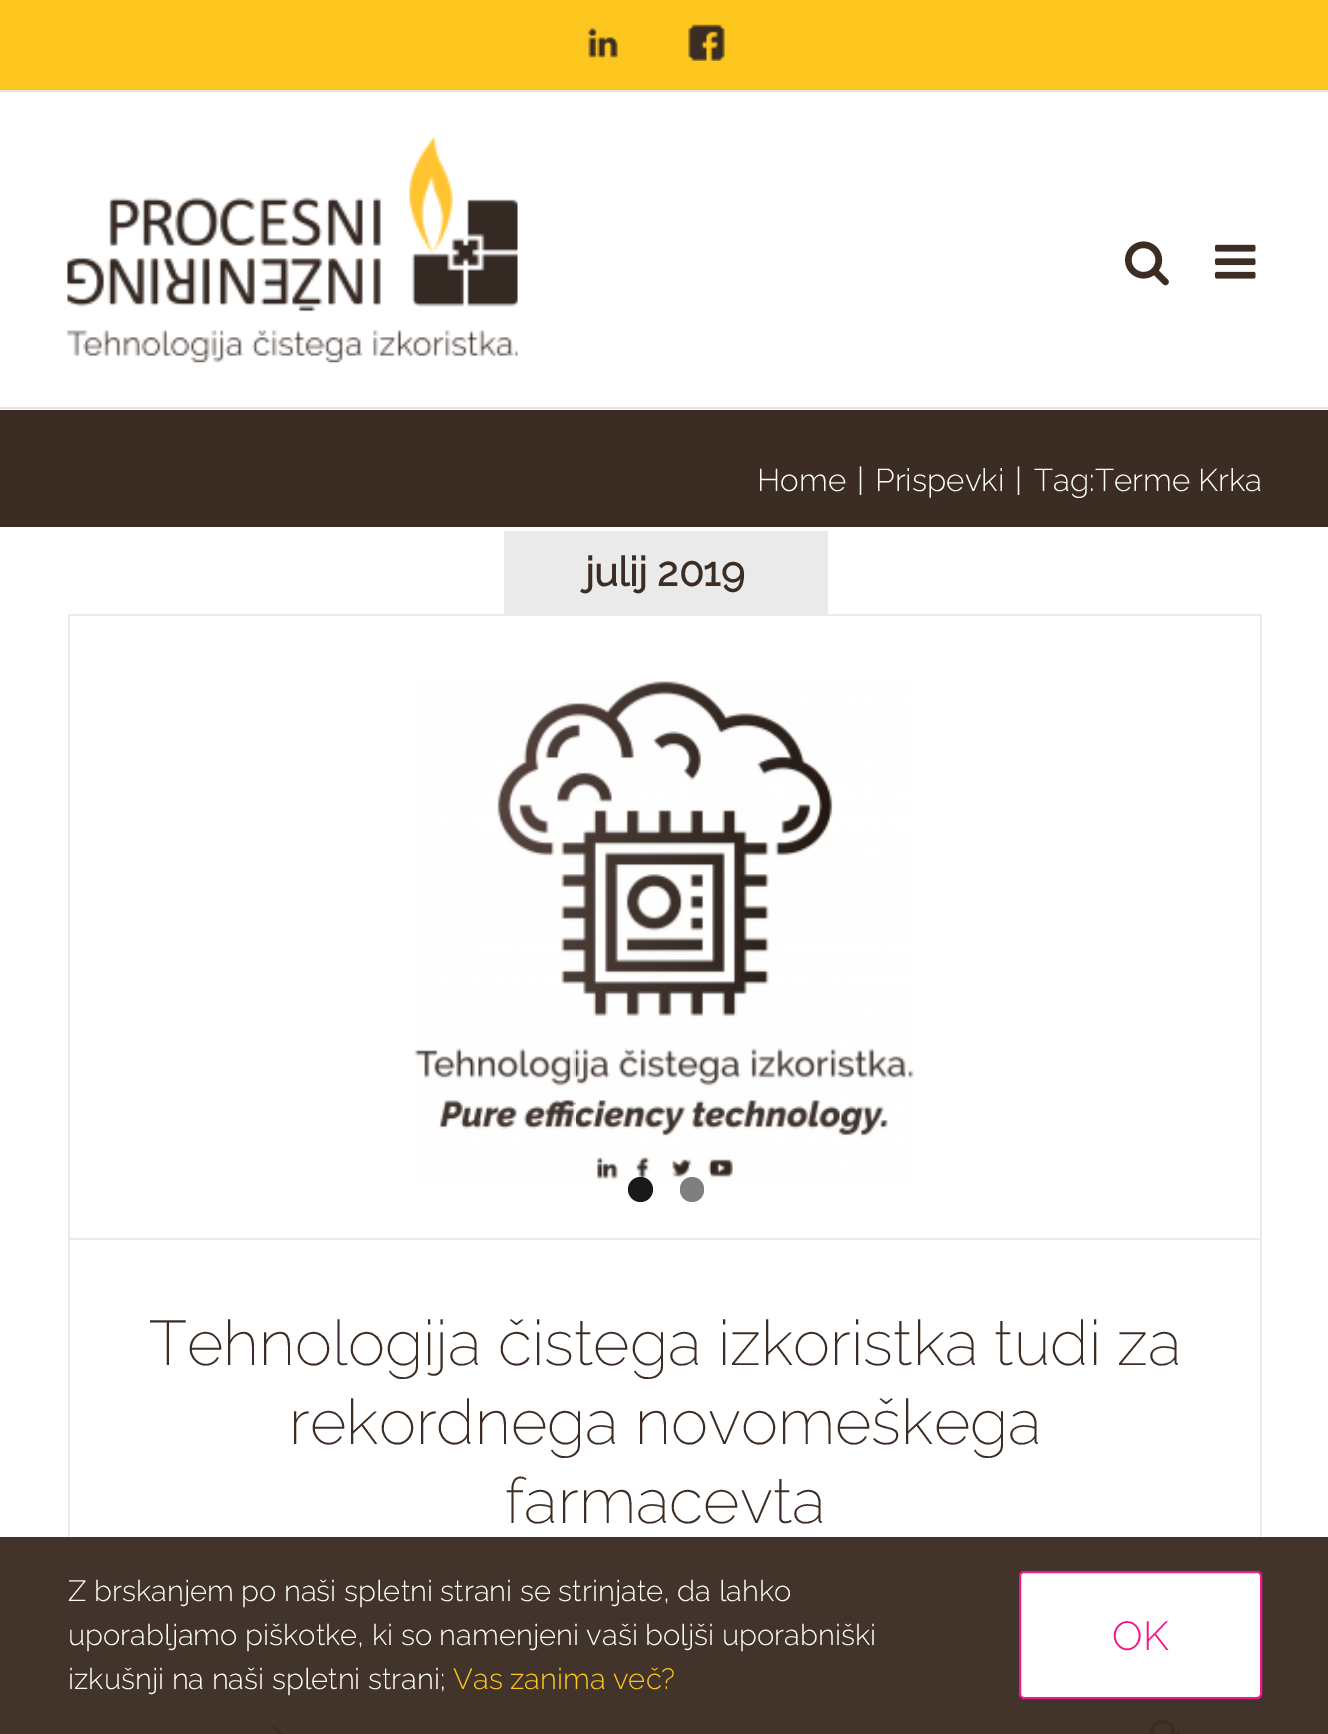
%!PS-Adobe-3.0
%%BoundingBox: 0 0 1328 1734
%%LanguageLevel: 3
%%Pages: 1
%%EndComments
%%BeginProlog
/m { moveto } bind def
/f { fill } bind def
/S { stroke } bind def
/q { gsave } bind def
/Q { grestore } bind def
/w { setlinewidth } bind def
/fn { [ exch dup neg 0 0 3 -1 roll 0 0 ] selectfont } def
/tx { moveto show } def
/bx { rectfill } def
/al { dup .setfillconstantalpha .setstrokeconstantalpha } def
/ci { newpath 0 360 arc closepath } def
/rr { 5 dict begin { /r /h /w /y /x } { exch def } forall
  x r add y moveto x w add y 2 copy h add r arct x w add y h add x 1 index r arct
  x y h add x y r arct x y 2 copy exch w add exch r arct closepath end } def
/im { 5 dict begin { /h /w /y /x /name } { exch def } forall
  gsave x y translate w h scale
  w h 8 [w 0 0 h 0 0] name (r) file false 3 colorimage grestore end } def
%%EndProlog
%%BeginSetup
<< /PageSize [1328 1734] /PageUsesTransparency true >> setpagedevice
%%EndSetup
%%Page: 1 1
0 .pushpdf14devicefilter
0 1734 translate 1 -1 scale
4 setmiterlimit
1 setgray
0 0 1328 1734 bx
0.259 0.2 0.169 setrgbcolor
0 1537 1328 197 bx
0.992 0.776 0.118 setrgbcolor
0 0 1328 90 bx
0.898 setgray
0 90 1328 2 bx
(image0.raw) 588 28 30 30 im
(image1.raw) 688 24 37 37 im
0 407 1328 2 bx
(image2.raw) 67 137 451 226 im
(image3.raw) 1125 241 44 45 im
(image4.raw) 1215 244 41 35 im
0.235 0.176 0.141 setrgbcolor
0 410 1328 117 bx
/Raleway-Light 31.5 fn
1 setgray
(Home) 757 491 tx
(|) 857 491 tx
(Prispevki) 875 491 tx
(|) 1015 491 tx
(Tag:Terme Krka) 1034 491 tx
0.922 0.918 0.918 setrgbcolor
504 531 324 83 bx
/Raleway-Bold 40.5 fn
0.235 0.176 0.141 setrgbcolor
(julij 2019) 585 586 tx
0.918 setgray
68 614 1194 2 bx
1260 614 2 923 bx
68 614 2 923 bx
0.922 0.918 0.918 setrgbcolor
70 1238 1190 2 bx
(image5.raw) 414 680 500 501 im
0.9 al
0 setgray
640.5 1189.5 12.5 ci f
0.5 al
680 1177 24 25 12 rr f
/Raleway-ExtraLight 62.9 fn
1 al
0.235 0.176 0.141 setrgbcolor
(Tehnologija čistega izkoristka tudi za) 149 1365 tx
(rekordnega novomeškega) 289 1444 tx
(farmacevta) 505 1523 tx
(image6.raw) 272 1725 11 9 im
(image7.raw) 1149 1720 31 14 im
/Raleway-Light 29.25 fn
1 setgray
(Z brskanjem po naši spletni strani se strinjate, da lahko) 68 1601 tx
(uporabljamo piškotke, ki so namenjeni vaši boljši uporabniški) 68 1645 tx
(izkušnji na naši spletni strani;) 68 1689 tx
0.992 0.776 0.118 setrgbcolor
(Vas zanima več?) 453 1689 tx
1 setgray
1020 1572 241 126 4 rr q f Q
0.957 0.086 0.557 setrgbcolor
2 w
S
/Raleway-Light 40.5 fn
1112 1650 m 1 0 (OK) ashow
.poppdf14devicefilter showpage
%%EOF
